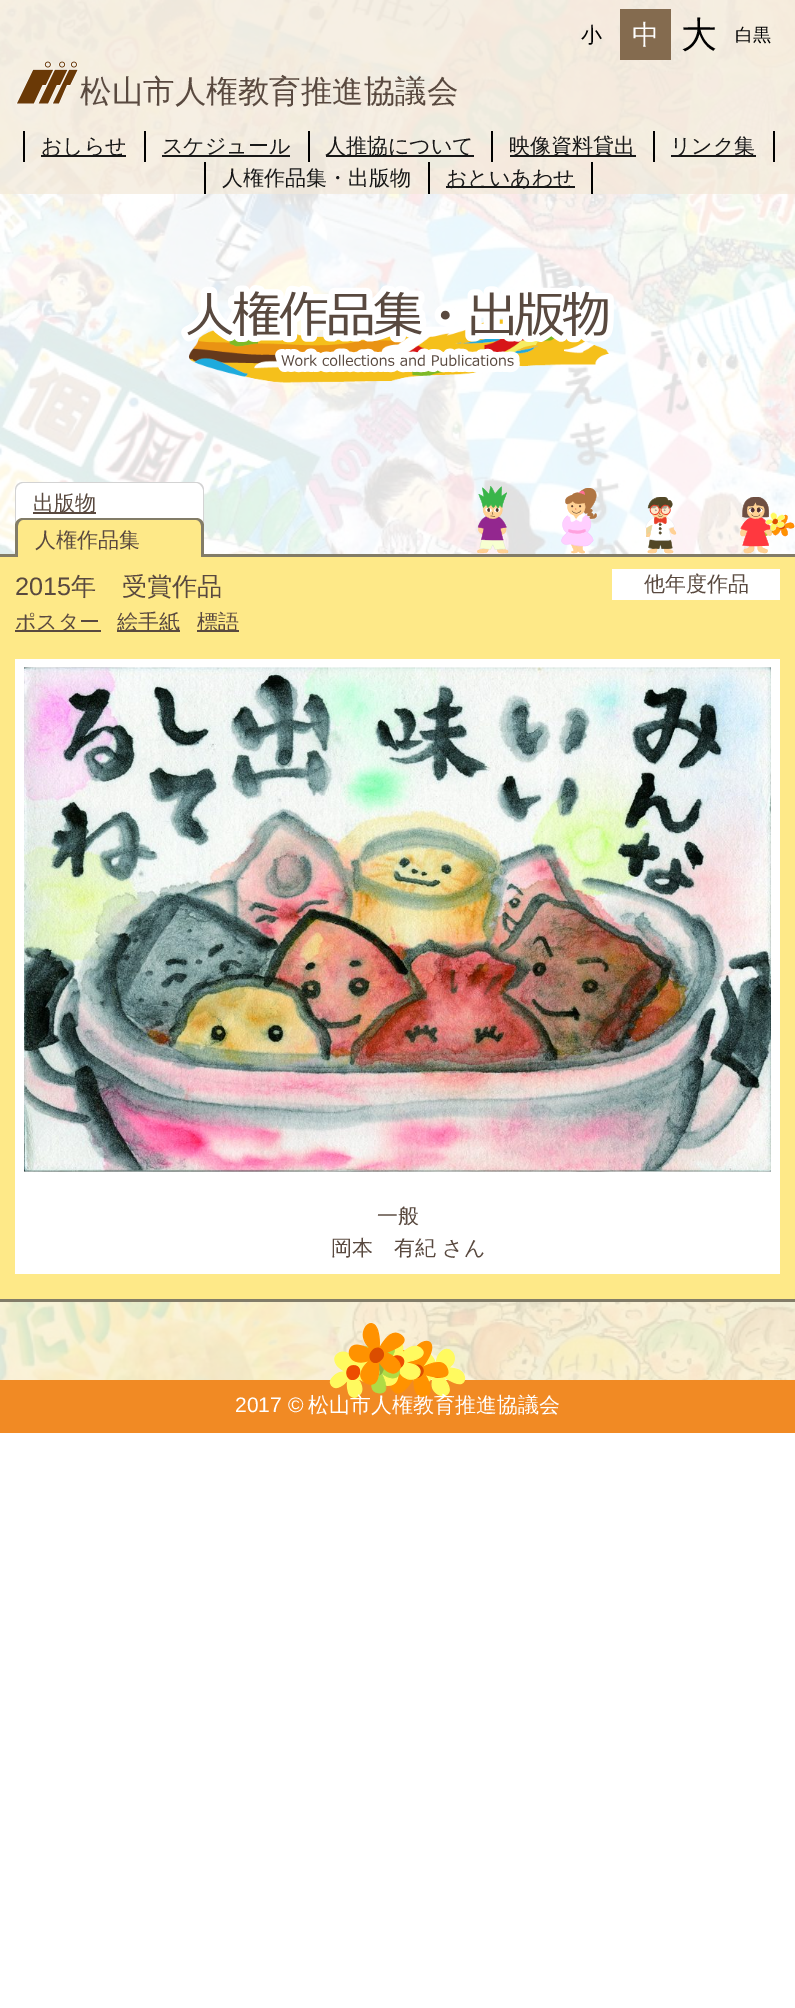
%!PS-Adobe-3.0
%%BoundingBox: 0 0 795 2008
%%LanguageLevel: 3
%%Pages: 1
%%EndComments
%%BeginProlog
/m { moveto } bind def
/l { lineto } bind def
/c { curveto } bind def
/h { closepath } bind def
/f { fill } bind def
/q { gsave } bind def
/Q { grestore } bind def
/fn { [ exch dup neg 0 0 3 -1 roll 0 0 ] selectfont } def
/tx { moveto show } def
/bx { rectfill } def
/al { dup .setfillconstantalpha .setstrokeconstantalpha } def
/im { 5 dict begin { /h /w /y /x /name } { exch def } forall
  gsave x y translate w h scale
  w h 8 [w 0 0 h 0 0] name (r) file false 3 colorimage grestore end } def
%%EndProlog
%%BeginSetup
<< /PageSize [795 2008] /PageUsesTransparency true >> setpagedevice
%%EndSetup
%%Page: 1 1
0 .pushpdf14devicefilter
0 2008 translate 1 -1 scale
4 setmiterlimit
1 setgray
0 0 795 2008 bx
(image0.raw) 0 0 795 1380 im
0.7 al
0.949 0.91 0.847 setrgbcolor
0 0 795 194 bx
/WenQuanYiZenHei-Medium 21 fn
1 al
0 setgray
(小) 581 42 tx
0.518 0.42 0.31 setrgbcolor
620 9 51 51 bx
/WenQuanYiZenHei-Medium 27 fn
1 setgray
(中) 632 44 tx
/WenQuanYiZenHei-Medium 36 fn
0 setgray
(大) 681 47 tx
/WenQuanYiZenHei-Medium 18 fn
(白黒) 735 41 tx
(image1.raw) 16 61 63 43 im
/WenQuanYiZenHei-Medium 31.5 fn
0.349 0.286 0.247 setrgbcolor
(松山市人権教育推進協議会) 80 102 tx
0 setgray
144 131 2 31 bx
23 131 2 31 bx
0.094 setgray
41 155 85 2 bx
/WenQuanYiZenHei-Medium 21 fn
(おしらせ) 41 153 tx
0 setgray
308 131 2 31 bx
0.094 setgray
162 155 128 2 bx
(スケジュール) 162 153 tx
0 setgray
491 131 2 31 bx
0.094 setgray
326 155 148 2 bx
(人推協について) 325 153 tx
0 setgray
653 131 2 31 bx
0.094 setgray
510 155 126 2 bx
(映像資料貸出) 509 153 tx
0 setgray
773 131 2 31 bx
0.094 setgray
671 155 85 2 bx
(リンク集) 670 153 tx
0 setgray
428 162 2 32 bx
204 162 2 32 bx
0.094 setgray
(人権作品集・出版物) 222 185 tx
0 setgray
591 162 2 32 bx
0.094 setgray
446 186 129 2 bx
(おといあわせ) 446 185 tx
(image2.raw) 188 319 421 64 im
(image3.raw) 181 285 433 88 im
1 setgray
24 482 m 195 482 l 200 482 204 486 204 491 c 204 554 l 15 554 l 15 491 l 15 486 19 482 24 482 c h f
0.827 setgray
23 482 m 196 482 l 200 482 204 485 204 490 c 204 554 l 15 554 l 15 490 l 15 485 19 482 23 482 c h 23 483 m 196 483 l 199 483 202 486 202 490 c 202 554 l 16 554 l 16 490 l 16 486 20 483 23 483 c h eofill
q
25 483 m 195 483 l 199.5 483 203 486.5 203 491 c 203 554 l 17 554 l 17 491 l 17 486.5 20.5 483 25 483 c h clip newpath
1 setgray
26 483 m 194 483 l 199 483 203 487 203 492 c 203 527 l 17 527 l 17 492 l 17 487 21 483 26 483 c h f
Q
0.349 0.286 0.247 setrgbcolor
33 512 63 2 bx
(出版物) 33 510 tx
(image4.raw) 477 486 32 68 im
(image5.raw) 561 488 36 66 im
(image6.raw) 645 497 32 57 im
(image7.raw) 740 497 55 57 im
0.996 0.914 0.533 setrgbcolor
24 518 m 195 518 l 200 518 204 522 204 527 c 204 554 l 15 554 l 15 527 l 15 522 19 518 24 518 c h f
0.51 0.486 0.408 setrgbcolor
23 518 m 196 518 l 200 518 204 521 204 526 c 204 554 l 15 554 l 15 526 l 15 521 19 518 23 518 c h 23 520 m 196 520 l 199 520 201 523 201 526 c 201 554 l 18 554 l 18 526 l 18 523 20 520 23 520 c h eofill
0.996 0.914 0.533 setrgbcolor
0 557 795 742 bx
0.51 0.486 0.408 setrgbcolor
0 554 795 3 bx
0.996 0.914 0.533 setrgbcolor
27 521 m 192 521 l 197 521 201 525 201 530 c 201 564 l 18 564 l 18 530 l 18 525 22 521 27 521 c h f
0.349 0.286 0.247 setrgbcolor
(人権作品集) 35 547 tx
0.51 0.486 0.408 setrgbcolor
0 1299 795 3 bx
/LiberationSans-Regular 25.25 fn
0.349 0.286 0.247 setrgbcolor
(2015) 15 595 tx
/WenQuanYiZenHei-Medium 25.25 fn
(年　受賞作品) 71 595 tx
1 setgray
612 569 168 31 bx
/WenQuanYiZenHei-Medium 21 fn
0.349 0.286 0.247 setrgbcolor
(他年度作品) 644 591 tx
15 630 86 2 bx
(ポスター) 15 629 tx
117 630 63 2 bx
(絵手紙) 117 629 tx
197 630 42 2 bx
(標語) 197 629 tx
1 setgray
15 659 765 615 bx
(image8.raw) 24 667 747 505 im
0.349 0.286 0.247 setrgbcolor
(一般) 377 1223 tx
(岡本　有紀 さん) 331 1255 tx
0.85 al
0.98 0.949 0.843 setrgbcolor
0 1302 795 78 bx
1 al
0.945 0.541 0.141 setrgbcolor
0 1380 795 53 bx
(image9.raw) 329 1323 137 75 im
/LiberationSans-Regular 21 fn
1 setgray
(2017 ©) 235 1412 tx
/WenQuanYiZenHei-Medium 21 fn
(松山市人権教育推進協議会) 308 1412 tx
.poppdf14devicefilter showpage
%%EOF
